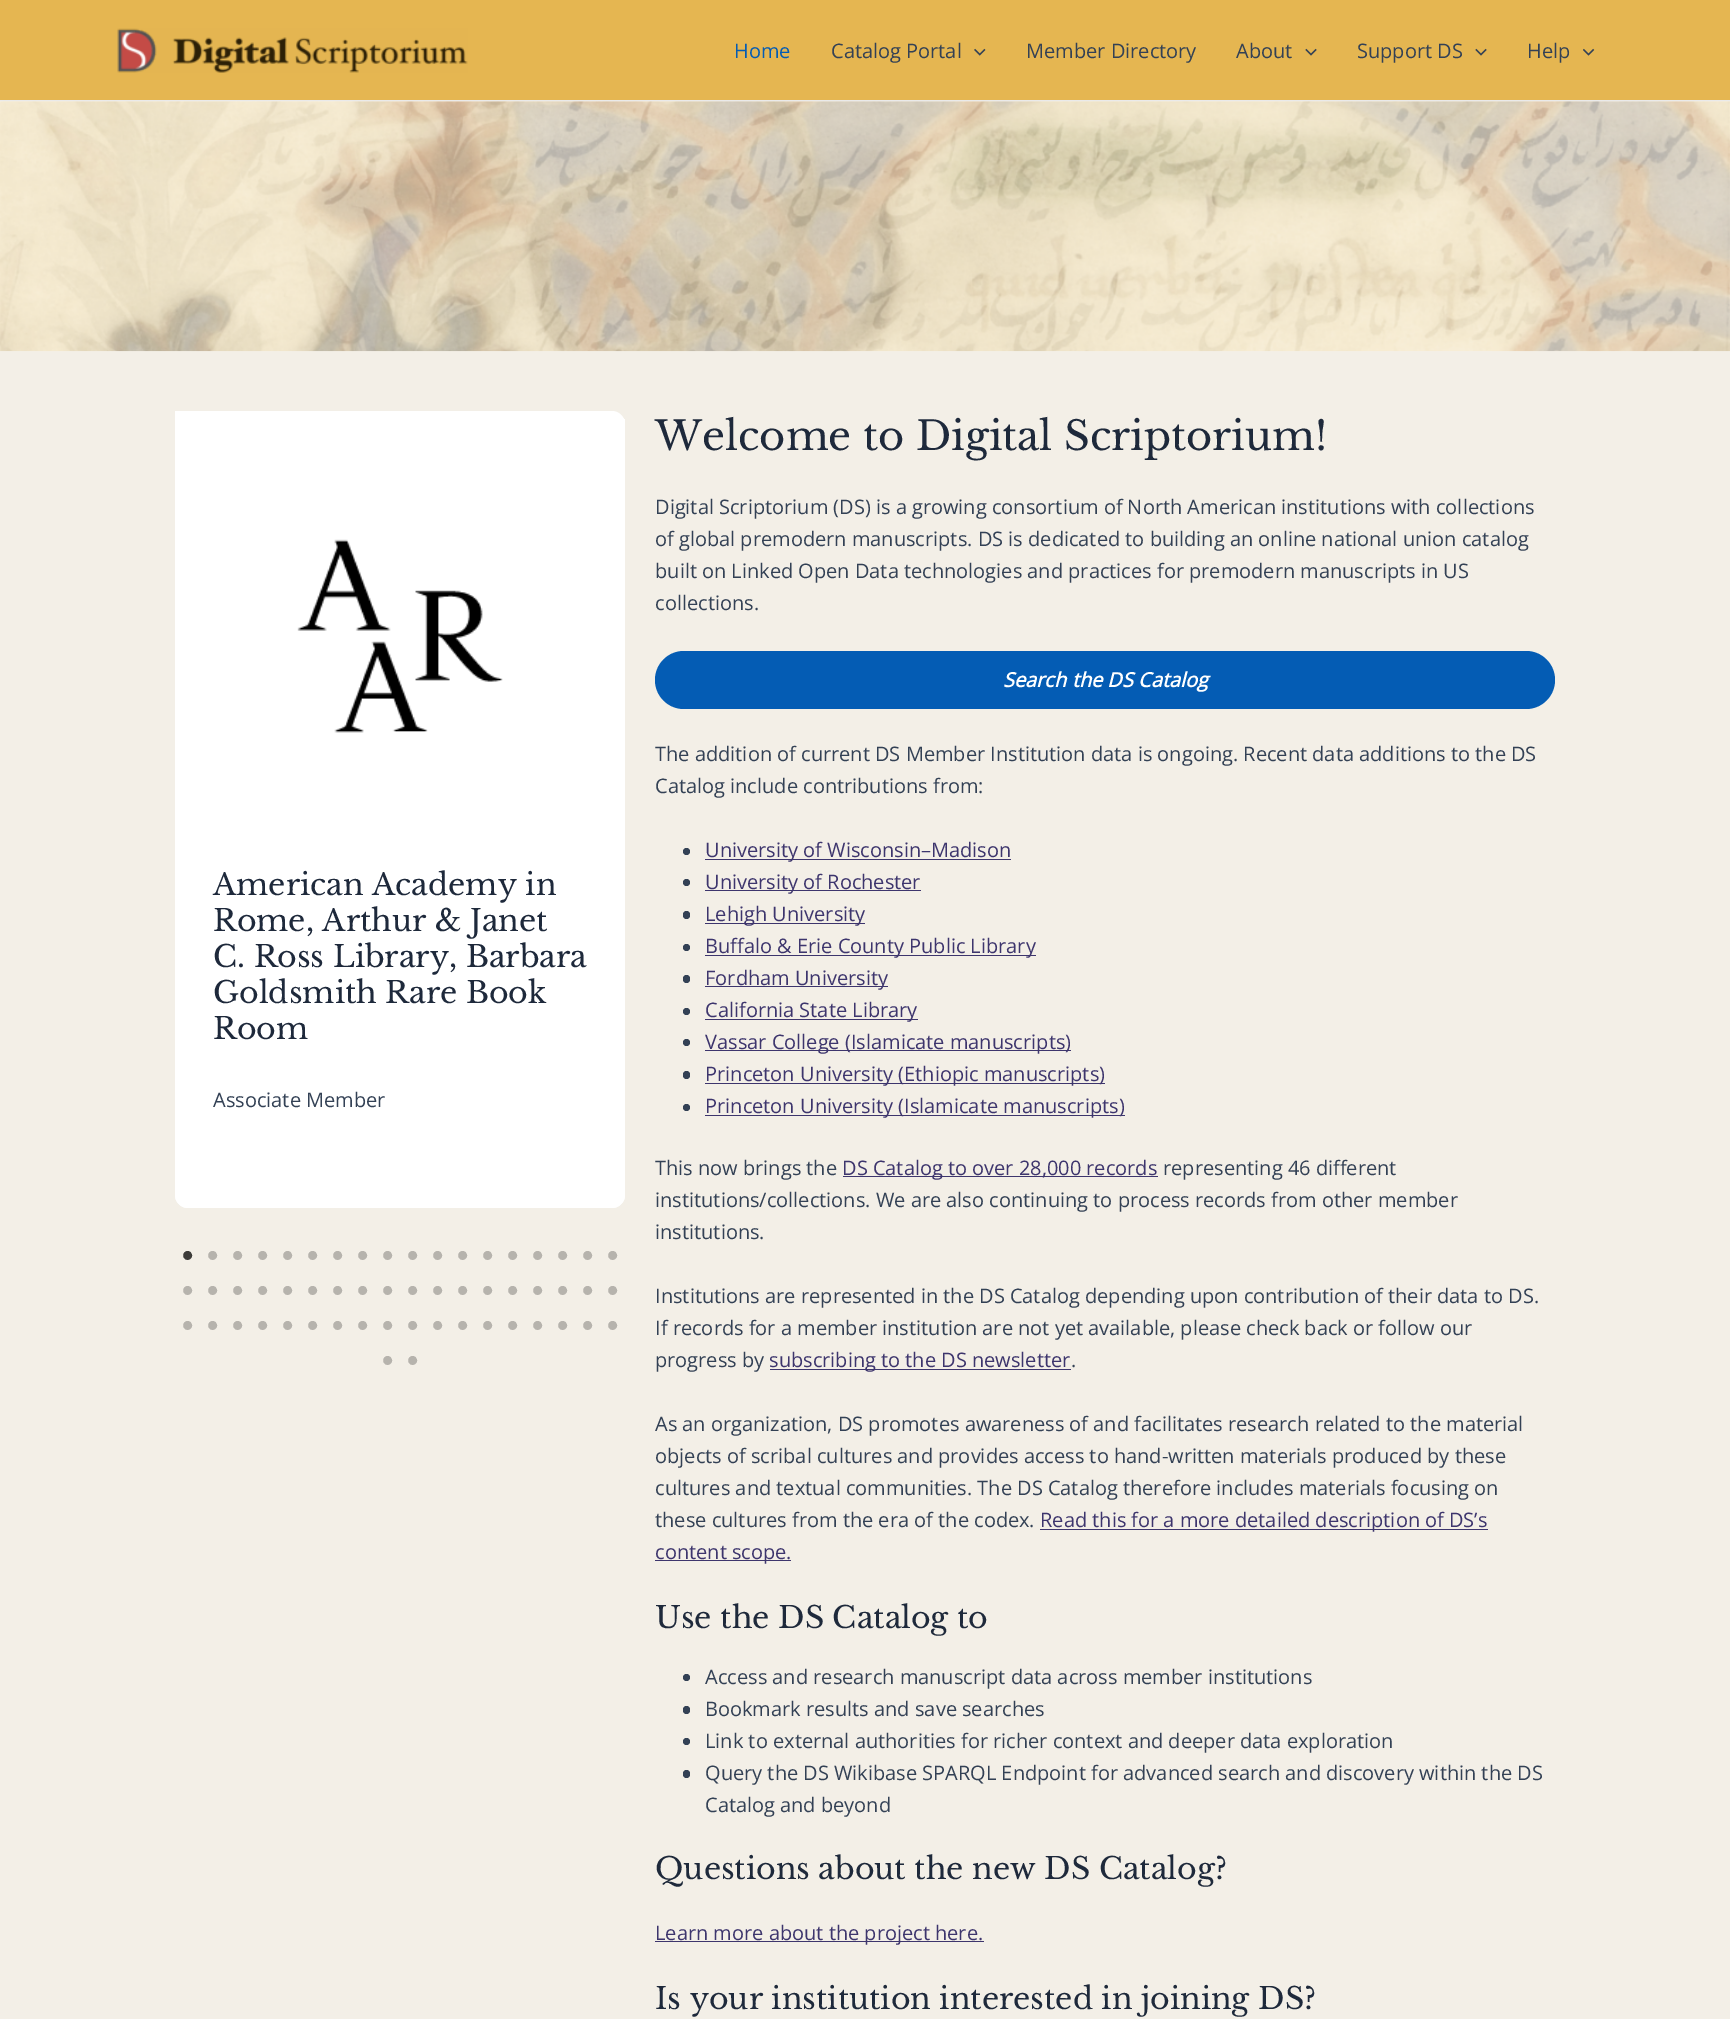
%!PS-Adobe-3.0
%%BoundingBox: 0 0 1730 2019
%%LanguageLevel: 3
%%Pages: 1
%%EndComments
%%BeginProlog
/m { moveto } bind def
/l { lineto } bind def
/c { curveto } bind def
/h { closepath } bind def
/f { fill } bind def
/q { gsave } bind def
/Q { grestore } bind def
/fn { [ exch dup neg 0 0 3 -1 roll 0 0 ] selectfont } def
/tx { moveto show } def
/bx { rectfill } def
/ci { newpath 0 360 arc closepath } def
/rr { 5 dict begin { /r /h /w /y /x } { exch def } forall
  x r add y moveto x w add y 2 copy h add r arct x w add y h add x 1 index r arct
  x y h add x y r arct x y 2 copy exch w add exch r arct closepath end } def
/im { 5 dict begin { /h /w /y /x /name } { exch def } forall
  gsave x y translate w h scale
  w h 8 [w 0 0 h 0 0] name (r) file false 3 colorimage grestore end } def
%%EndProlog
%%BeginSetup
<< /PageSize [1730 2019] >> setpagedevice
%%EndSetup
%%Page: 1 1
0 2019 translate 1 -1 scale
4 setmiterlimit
0.953 0.937 0.906 setrgbcolor
0 0 1730 2019 bx
0.898 0.714 0.318 setrgbcolor
0 0 1730 100 bx
0.918 setgray
0 100 1730 1 bx
(image0.raw) 117 28 351 45 im
/OpenSans-Regular 20 fn
0.016 0.361 0.706 setrgbcolor
(Home) 734 58 tx
0.2 0.255 0.333 setrgbcolor
(Catalog Portal) 831 58 tx
(image1.raw) 974 48 12 8 im
(Member Directory) 1026 58 tx
(About) 1236 58 tx
(image2.raw) 1305 48 12 8 im
(Support DS) 1357 58 tx
(image2.raw) 1475 48 12 8 im
(Help) 1527 58 tx
(image3.raw) 1583 48 12 8 im
(image4.raw) 0 101 1730 251 im
1 setgray
175 411 m 612 411 l 619 411 625 417 625 424 c 625 1195 l 625 1202 619 1208 612 1208 c 188 1208 l 181 1208 175 1202 175 1195 c h f
q
175 411 m 612 411 l 619 411 625 417 625 424 c 625 1195 l 625 1202 619 1208 612 1208 c 188 1208 l 181 1208 175 1202 175 1195 c h clip newpath
175 418 m 625 418 l 625 1195 l 625 1202 619 1208 612 1208 c 188 1208 l 181 1208 175 1202 175 1195 c h f
Q
(image5.raw) 297 539 206 194 im
/LibreBaskerville-Regular 30 fn
0.118 0.161 0.231 setrgbcolor
(American Academy in) 213 895 tx
(Rome, Arthur & Janet) 213 931 tx
(C. Ross Library, Barbara) 213 967 tx
(Goldsmith Rare Book) 213 1003 tx
(Room) 213 1039 tx
/OpenSans-Regular 20 fn
0.2 0.255 0.333 setrgbcolor
(Associate Member) 213 1107 tx
/LiberationSerif-Regular 38 fn
0.239 0.235 0.227 setrgbcolor
(•) 181 1268 tx
0.714 0.702 0.678 setrgbcolor
(•) 206 1268 tx
(•) 231 1268 tx
(•) 256 1268 tx
(•) 281 1268 tx
(•) 306 1268 tx
(•) 331 1268 tx
(•) 356 1268 tx
(•) 381 1268 tx
(•) 406 1268 tx
(•) 431 1268 tx
(•) 456 1268 tx
(•) 481 1268 tx
(•) 506 1268 tx
(•) 531 1268 tx
(•) 556 1268 tx
(•) 581 1268 tx
(•) 606 1268 tx
(•) 181 1303 tx
(•) 206 1303 tx
(•) 231 1303 tx
(•) 256 1303 tx
(•) 281 1303 tx
(•) 306 1303 tx
(•) 331 1303 tx
(•) 356 1303 tx
(•) 381 1303 tx
(•) 406 1303 tx
(•) 431 1303 tx
(•) 456 1303 tx
(•) 481 1303 tx
(•) 506 1303 tx
(•) 531 1303 tx
(•) 556 1303 tx
(•) 581 1303 tx
(•) 606 1303 tx
(•) 181 1338 tx
(•) 206 1338 tx
(•) 231 1338 tx
(•) 256 1338 tx
(•) 281 1338 tx
(•) 306 1338 tx
(•) 331 1338 tx
(•) 356 1338 tx
(•) 381 1338 tx
(•) 406 1338 tx
(•) 431 1338 tx
(•) 456 1338 tx
(•) 481 1338 tx
(•) 506 1338 tx
(•) 531 1338 tx
(•) 556 1338 tx
(•) 581 1338 tx
(•) 606 1338 tx
(•) 381 1373 tx
(•) 406 1373 tx
/LibreBaskerville-Regular 40 fn
0.118 0.161 0.231 setrgbcolor
(Welcome to Digital Scriptorium!) 655 450 tx
/OpenSans-Regular 20 fn
0.2 0.255 0.333 setrgbcolor
(Digital Scriptorium \(DS\) is a growing consortium of North American institutions with collections) 655 514 tx
(of global premodern manuscripts. DS is dedicated to building an online national union catalog) 655 546 tx
(built on Linked Open Data technologies and practices for premodern manuscripts in US) 655 578 tx
(collections.) 655 610 tx
0.016 0.361 0.706 setrgbcolor
655 651 900 58 29 rr f
/OpenSans-BoldItalic 20 fn
1 setgray
(Search the DS Catalog) 1003 687 tx
/OpenSans-Regular 20 fn
0.2 0.255 0.333 setrgbcolor
(The addition of current DS Member Institution data is ongoing. Recent data additions to the DS) 655 761 tx
(Catalog include contributions from:) 655 793 tx
686.5 851.5 3.5 ci f
0.239 0.208 0.427 setrgbcolor
705 859 306 1 bx
(University of Wisconsin–Madison) 705 857 tx
0.2 0.255 0.333 setrgbcolor
686.5 882.5 3.5 ci f
0.239 0.208 0.427 setrgbcolor
705 890 216 1 bx
(University of Rochester) 705 889 tx
0.2 0.255 0.333 setrgbcolor
683 911 7 8 3.5 rr f
0.239 0.208 0.427 setrgbcolor
705 923 160 1 bx
(Lehigh University) 705 921 tx
0.2 0.255 0.333 setrgbcolor
686.5 947.5 3.5 ci f
0.239 0.208 0.427 setrgbcolor
705 955 331 1 bx
(Buffalo & Erie County Public Library) 705 953 tx
0.2 0.255 0.333 setrgbcolor
683 975 7 8 3.5 rr f
0.239 0.208 0.427 setrgbcolor
705 986 183 1 bx
(Fordham University) 705 985 tx
0.2 0.255 0.333 setrgbcolor
686.5 1011.5 3.5 ci f
0.239 0.208 0.427 setrgbcolor
705 1019 213 1 bx
(California State Library) 705 1017 tx
0.2 0.255 0.333 setrgbcolor
686.5 1042.5 3.5 ci f
0.239 0.208 0.427 setrgbcolor
705 1050 366 1 bx
(Vassar College \(Islamicate manuscripts\)) 705 1049 tx
0.2 0.255 0.333 setrgbcolor
683 1071 7 8 3.5 rr f
0.239 0.208 0.427 setrgbcolor
705 1083 400 1 bx
(Princeton University \(Ethiopic manuscripts\)) 705 1081 tx
0.2 0.255 0.333 setrgbcolor
686.5 1107.5 3.5 ci f
0.239 0.208 0.427 setrgbcolor
705 1115 420 1 bx
(Princeton University \(Islamicate manuscripts\)) 705 1113 tx
0.2 0.255 0.333 setrgbcolor
(This now brings the) 655 1175 tx
0.239 0.208 0.427 setrgbcolor
843 1176 315 1 bx
(DS Catalog to over 28,000 records) 842 1175 tx
0.2 0.255 0.333 setrgbcolor
(representing 46 different) 1163 1175 tx
(institutions/collections. We are also continuing to process records from other member) 655 1207 tx
(institutions.) 655 1239 tx
(Institutions are represented in the DS Catalog depending upon contribution of their data to DS.) 655 1303 tx
(If records for a member institution are not yet available, please check back or follow our) 655 1335 tx
(progress by) 655 1367 tx
0.239 0.208 0.427 setrgbcolor
770 1369 301 1 bx
(subscribing to the DS newsletter) 769 1367 tx
0.2 0.255 0.333 setrgbcolor
(.) 1071 1367 tx
(As an organization, DS promotes awareness of and facilitates research related to the material) 655 1431 tx
(objects of scribal cultures and provides access to hand-written materials produced by these) 655 1463 tx
(cultures and textual communities. The DS Catalog therefore includes materials focusing on) 655 1495 tx
(these cultures from the era of the codex.) 655 1527 tx
0.239 0.208 0.427 setrgbcolor
1040 1529 448 1 bx
(Read this for a more detailed description of DS’s) 1040 1527 tx
655 1560 136 1 bx
(content scope.) 655 1559 tx
/LibreBaskerville-Regular 30 fn
0.118 0.161 0.231 setrgbcolor
(Use the DS Catalog to) 655 1628 tx
0.2 0.255 0.333 setrgbcolor
686.5 1677.5 3.5 ci f
/OpenSans-Regular 20 fn
(Access and research manuscript data across member institutions) 705 1684 tx
683 1706 7 8 3.5 rr f
(Bookmark results and save searches) 705 1716 tx
686.5 1741.5 3.5 ci f
(Link to external authorities for richer context and deeper data exploration) 705 1748 tx
683 1770 7 8 3.5 rr f
(Query the DS Wikibase SPARQL Endpoint for advanced search and discovery within the DS) 705 1780 tx
(Catalog and beyond) 705 1812 tx
/LibreBaskerville-Regular 30 fn
0.118 0.161 0.231 setrgbcolor
(Questions about the new DS Catalog?) 655 1879 tx
0.239 0.208 0.427 setrgbcolor
655 1941 329 1 bx
/OpenSans-Regular 20 fn
(Learn more about the project here.) 655 1940 tx
/LibreBaskerville-Regular 30 fn
0.118 0.161 0.231 setrgbcolor
(Is your institution interested in joining DS?) 655 2009 tx
showpage
%%EOF
